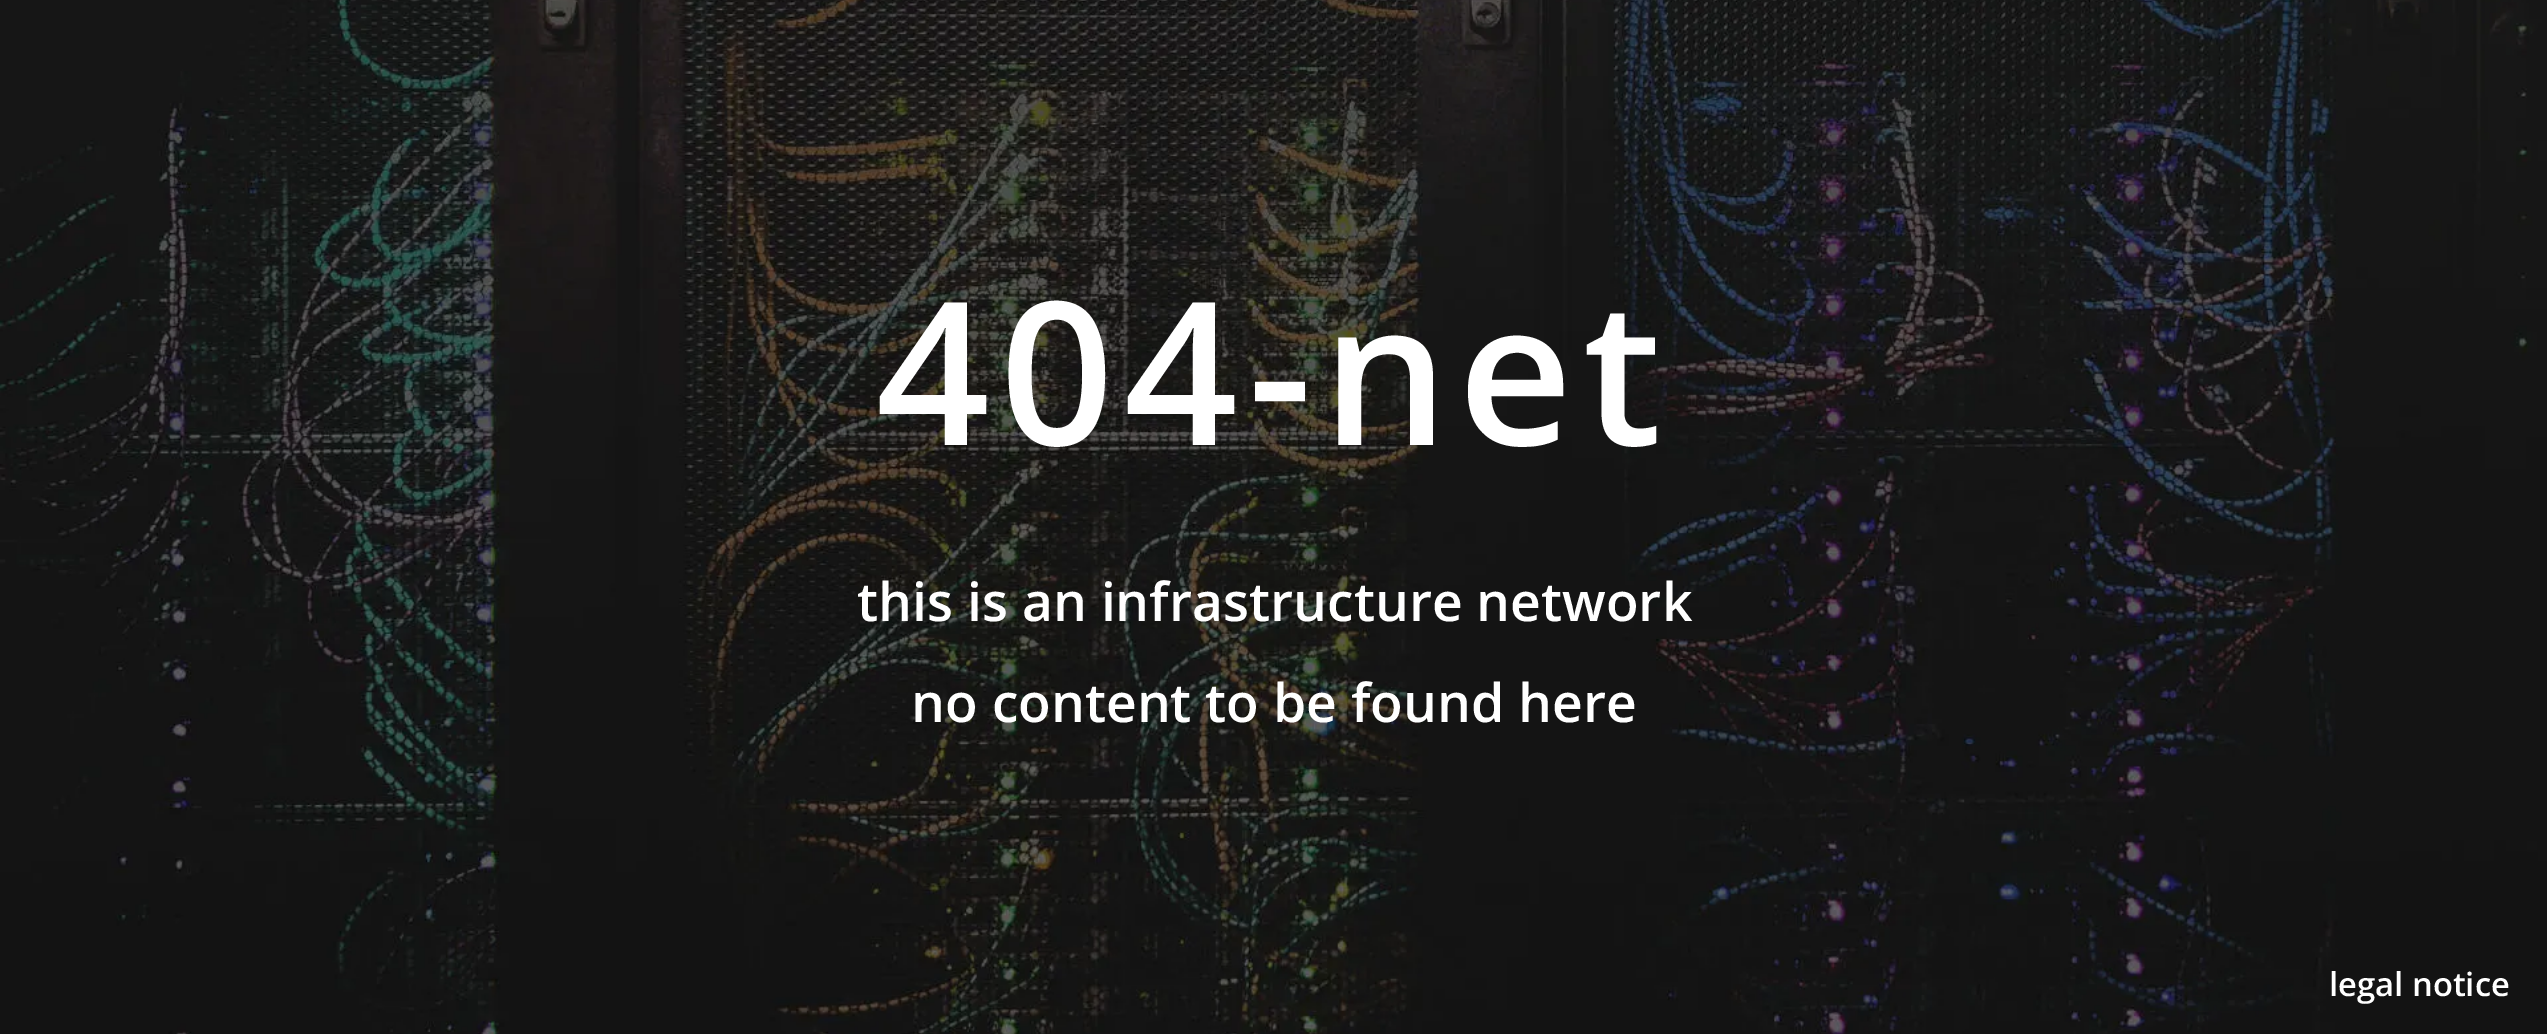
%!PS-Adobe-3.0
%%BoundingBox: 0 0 2547 1034
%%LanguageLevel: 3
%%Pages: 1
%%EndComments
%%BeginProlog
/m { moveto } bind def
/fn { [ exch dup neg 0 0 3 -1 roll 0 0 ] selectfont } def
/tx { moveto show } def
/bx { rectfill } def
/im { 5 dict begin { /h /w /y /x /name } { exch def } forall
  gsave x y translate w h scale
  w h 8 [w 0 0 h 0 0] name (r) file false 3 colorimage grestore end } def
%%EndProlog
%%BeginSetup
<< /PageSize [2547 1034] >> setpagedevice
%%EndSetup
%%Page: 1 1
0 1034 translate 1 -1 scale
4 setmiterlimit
1 setgray
0 0 2547 1034 bx
(image0.raw) 0 0 2547 1034 im
/OpenSans-SemiBold 199.5 fn
876 445 m 10 0 (404-net) ashow
/OpenSans-SemiBold 53.5 fn
(this is an infrastructure network) 857 621 tx
(no content to be found here) 911 722 tx
/OpenSans-SemiBold 32.75 fn
(legal notice) 2329 996 tx
showpage
%%EOF
